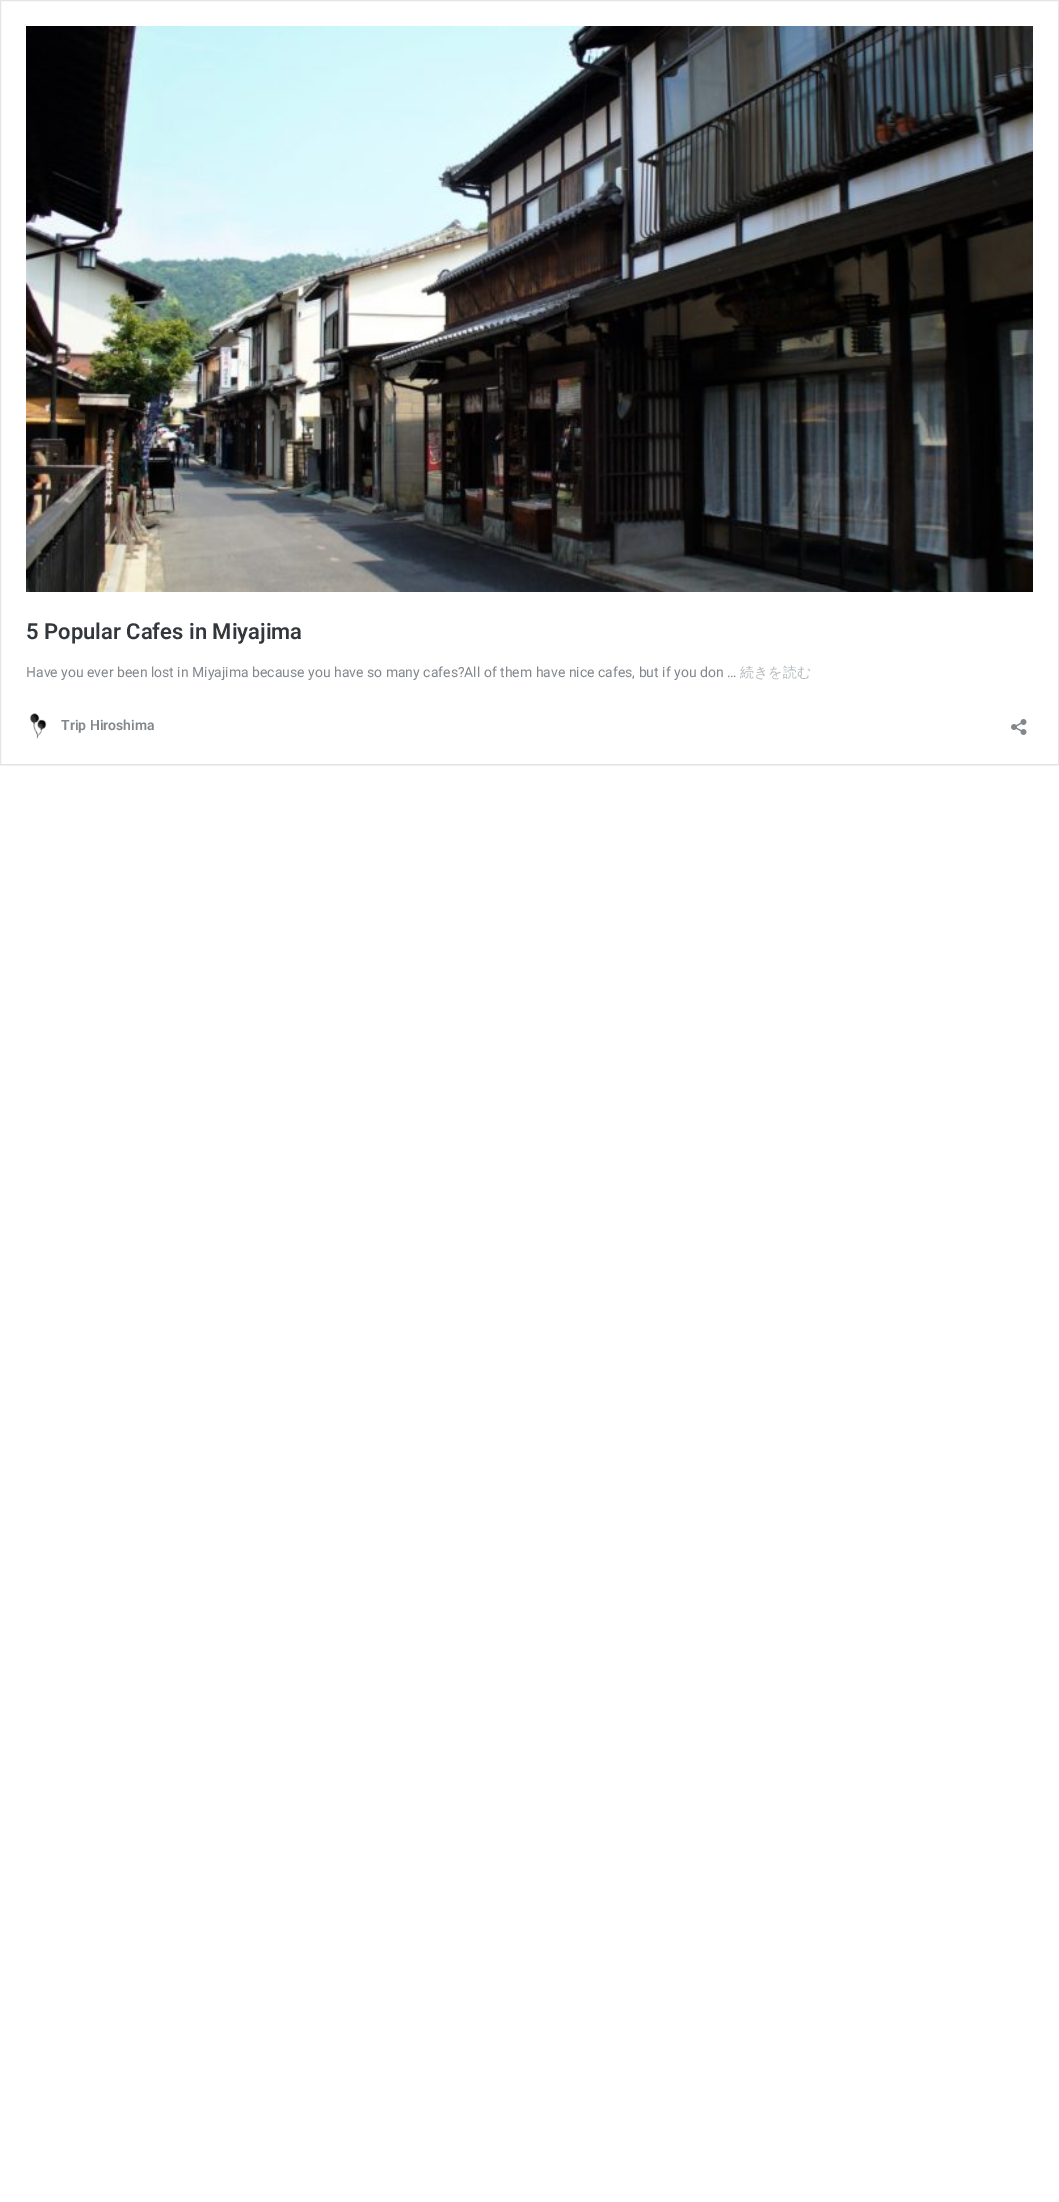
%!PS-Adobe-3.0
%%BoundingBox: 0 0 1059 2202
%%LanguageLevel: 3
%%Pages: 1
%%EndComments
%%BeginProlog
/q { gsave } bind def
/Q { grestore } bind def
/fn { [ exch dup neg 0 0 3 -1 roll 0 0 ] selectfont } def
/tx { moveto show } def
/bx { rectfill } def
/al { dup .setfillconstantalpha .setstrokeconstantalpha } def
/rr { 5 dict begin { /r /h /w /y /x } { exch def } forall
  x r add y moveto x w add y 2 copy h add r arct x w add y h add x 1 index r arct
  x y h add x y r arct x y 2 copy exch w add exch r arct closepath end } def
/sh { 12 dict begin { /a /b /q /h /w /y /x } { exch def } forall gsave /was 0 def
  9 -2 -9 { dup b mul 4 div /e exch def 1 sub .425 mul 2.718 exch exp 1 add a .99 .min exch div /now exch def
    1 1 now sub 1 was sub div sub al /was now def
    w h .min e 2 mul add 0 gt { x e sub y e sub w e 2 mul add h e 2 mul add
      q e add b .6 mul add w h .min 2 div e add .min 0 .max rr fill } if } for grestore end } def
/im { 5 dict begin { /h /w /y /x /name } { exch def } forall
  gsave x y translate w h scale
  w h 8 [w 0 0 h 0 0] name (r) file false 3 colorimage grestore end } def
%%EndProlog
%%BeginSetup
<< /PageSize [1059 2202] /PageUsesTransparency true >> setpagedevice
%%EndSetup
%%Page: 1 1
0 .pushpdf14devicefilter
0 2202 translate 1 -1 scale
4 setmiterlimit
1 setgray
0 0 1059 2202 bx
q
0 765 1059 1 rectclip
0 setgray
0 1 1059 765 0 0.5 0.05 sh
Q
0.898 setgray
0.5 0.5 1058 764 rectstroke
(image0.raw) 26 26 1007 566 im
/Roboto-SemiBold 22 fn
0.196 0.216 0.235 setrgbcolor
(5 Popular Cafes in Miyajima) 26 639 tx
/Roboto-Regular 14 fn
0.51 0.529 0.549 setrgbcolor
(Have you ever been lost in Miyajima because you have so many cafes?All of them have nice cafes, but if you don …) 26 677 tx
/WenQuanYiZenHei-Medium 14 fn
0.706 0.725 0.745 setrgbcolor
(続きを読む) 740 677 tx
(image1.raw) 30 713 17 26 im
/Roboto-SemiBold 14 fn
0.51 0.529 0.549 setrgbcolor
(Trip Hiroshima) 61 730 tx
(image2.raw) 1011 719 16 16 im
.poppdf14devicefilter showpage
%%EOF
